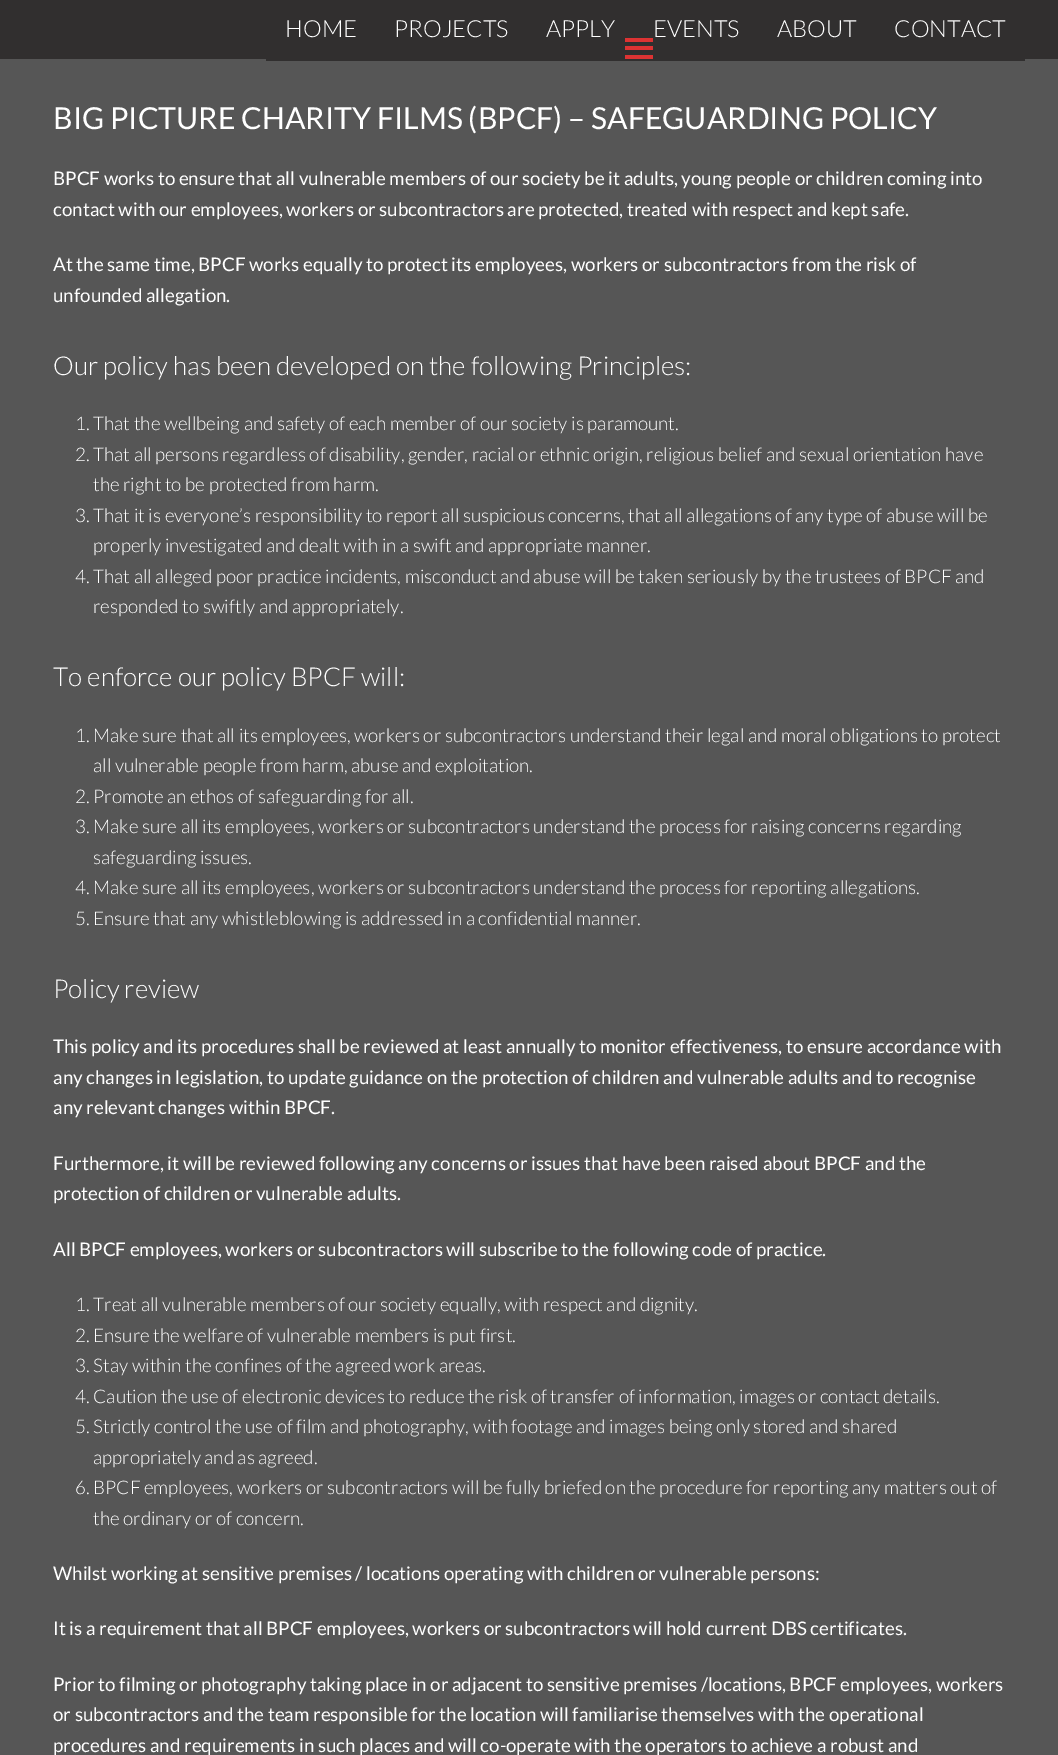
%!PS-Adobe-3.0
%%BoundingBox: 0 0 1058 1755
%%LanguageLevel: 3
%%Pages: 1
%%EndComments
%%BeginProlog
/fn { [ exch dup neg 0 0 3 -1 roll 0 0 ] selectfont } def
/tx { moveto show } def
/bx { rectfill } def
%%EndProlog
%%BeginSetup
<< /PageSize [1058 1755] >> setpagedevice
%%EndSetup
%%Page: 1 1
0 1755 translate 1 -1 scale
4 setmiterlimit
0.337 setgray
0 0 1058 1755 bx
0.192 0.184 0.184 setrgbcolor
0 0 1058 59 bx
266 59 759 2 bx
/Lato-Light 23.5 fn
1 setgray
(HOME) 285 37 tx
(PROJECTS) 394 37 tx
(APPLY) 546 37 tx
(EVENTS) 653 37 tx
(ABOUT) 777 37 tx
(CONTACT) 894 37 tx
0.867 0.2 0.2 setrgbcolor
625 46 28 4 bx
625 38 28 4 bx
625 55 28 4 bx
/Lato-Regular 30.25 fn
1 setgray
(BIG PICTURE CHARITY FILMS \(BPCF\) – SAFEGUARDING POLICY) 53 129 tx
/Lato-Regular 18.75 fn
(BPCF works to ensure that all vulnerable members of our society be it adults, young people or children coming into) 53 185 tx
(contact with our employees, workers or subcontractors are protected, treated with respect and kept safe.) 53 216 tx
(At the same time, BPCF works equally to protect its employees, workers or subcontractors from the risk of) 53 271 tx
(unfounded allegation.) 53 302 tx
/Lato-Light 26 fn
(Our policy has been developed on the following Principles:) 53 375 tx
/Lato-Light 18.75 fn
(1. That the wellbeing and safety of each member of our society is paramount.) 75 430 tx
(2. That all persons regardless of disability, gender, racial or ethnic origin, religious belief and sexual orientation have) 75 461 tx
(the right to be protected from harm.) 93 491 tx
(3. That it is everyone’s responsibility to report all suspicious concerns, that all allegations of any type of abuse will be) 75 522 tx
(properly investigated and dealt with in a swift and appropriate manner.) 93 552 tx
(4. That all alleged poor practice incidents, misconduct and abuse will be taken seriously by the trustees of BPCF and) 75 583 tx
(responded to swiftly and appropriately.) 93 613 tx
/Lato-Light 26 fn
(To enforce our policy BPCF will:) 53 686 tx
/Lato-Light 18.75 fn
(1. Make sure that all its employees, workers or subcontractors understand their legal and moral obligations to protect) 75 742 tx
(all vulnerable people from harm, abuse and exploitation.) 93 772 tx
(2. Promote an ethos of safeguarding for all.) 75 803 tx
(3. Make sure all its employees, workers or subcontractors understand the process for raising concerns regarding) 75 833 tx
(safeguarding issues.) 93 864 tx
(4. Make sure all its employees, workers or subcontractors understand the process for reporting allegations.) 75 894 tx
(5. Ensure that any whistleblowing is addressed in a confidential manner.) 75 925 tx
/Lato-Light 26 fn
(Policy review) 53 998 tx
/Lato-Regular 18.75 fn
(This policy and its procedures shall be reviewed at least annually to monitor effectiveness, to ensure accordance with) 53 1053 tx
(any changes in legislation, to update guidance on the protection of children and vulnerable adults and to recognise) 53 1084 tx
(any relevant changes within BPCF.) 53 1114 tx
(Furthermore, it will be reviewed following any concerns or issues that have been raised about BPCF and the) 53 1170 tx
(protection of children or vulnerable adults.) 53 1200 tx
(All BPCF employees, workers or subcontractors will subscribe to the following code of practice.) 53 1256 tx
/Lato-Light 18.75 fn
(1. Treat all vulnerable members of our society equally, with respect and dignity.) 75 1311 tx
(2. Ensure the welfare of vulnerable members is put first.) 75 1342 tx
(3. Stay within the confines of the agreed work areas.) 75 1372 tx
(4. Caution the use of electronic devices to reduce the risk of transfer of information, images or contact details.) 75 1403 tx
(5. Strictly control the use of film and photography, with footage and images being only stored and shared) 75 1433 tx
(appropriately and as agreed.) 93 1464 tx
(6. BPCF employees, workers or subcontractors will be fully briefed on the procedure for reporting any matters out of) 75 1494 tx
(the ordinary or of concern.) 93 1525 tx
/Lato-Regular 18.75 fn
(Whilst working at sensitive premises / locations operating with children or vulnerable persons:) 53 1580 tx
(It is a requirement that all BPCF employees, workers or subcontractors will hold current DBS certificates.) 53 1635 tx
(Prior to filming or photography taking place in or adjacent to sensitive premises /locations, BPCF employees, workers) 53 1691 tx
(or subcontractors and the team responsible for the location will familiarise themselves with the operational) 53 1721 tx
(procedures and requirements in such places and will co-operate with the operators to achieve a robust and) 53 1752 tx
showpage
%%EOF
